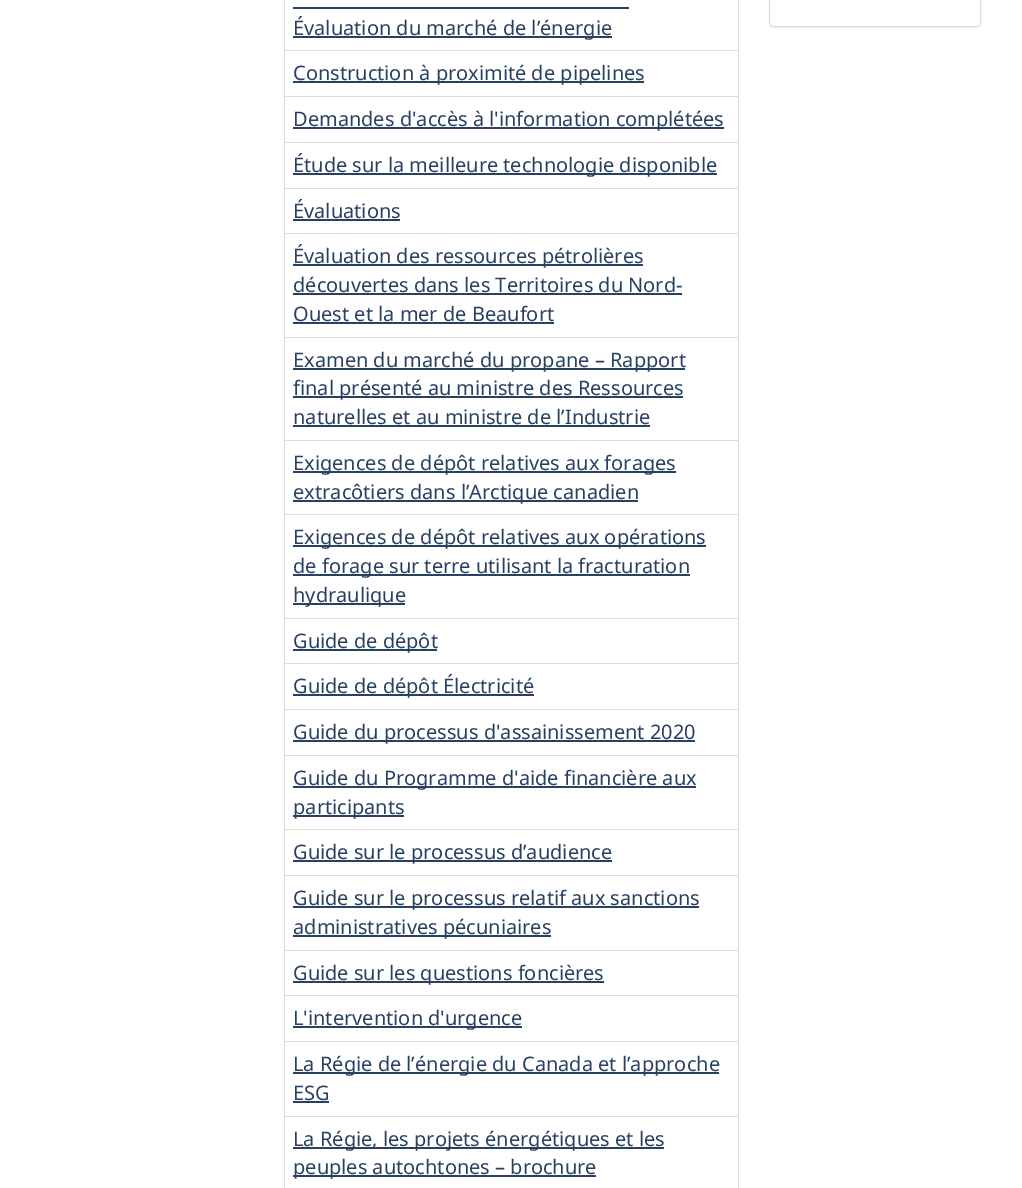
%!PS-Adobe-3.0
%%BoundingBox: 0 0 1022 1188
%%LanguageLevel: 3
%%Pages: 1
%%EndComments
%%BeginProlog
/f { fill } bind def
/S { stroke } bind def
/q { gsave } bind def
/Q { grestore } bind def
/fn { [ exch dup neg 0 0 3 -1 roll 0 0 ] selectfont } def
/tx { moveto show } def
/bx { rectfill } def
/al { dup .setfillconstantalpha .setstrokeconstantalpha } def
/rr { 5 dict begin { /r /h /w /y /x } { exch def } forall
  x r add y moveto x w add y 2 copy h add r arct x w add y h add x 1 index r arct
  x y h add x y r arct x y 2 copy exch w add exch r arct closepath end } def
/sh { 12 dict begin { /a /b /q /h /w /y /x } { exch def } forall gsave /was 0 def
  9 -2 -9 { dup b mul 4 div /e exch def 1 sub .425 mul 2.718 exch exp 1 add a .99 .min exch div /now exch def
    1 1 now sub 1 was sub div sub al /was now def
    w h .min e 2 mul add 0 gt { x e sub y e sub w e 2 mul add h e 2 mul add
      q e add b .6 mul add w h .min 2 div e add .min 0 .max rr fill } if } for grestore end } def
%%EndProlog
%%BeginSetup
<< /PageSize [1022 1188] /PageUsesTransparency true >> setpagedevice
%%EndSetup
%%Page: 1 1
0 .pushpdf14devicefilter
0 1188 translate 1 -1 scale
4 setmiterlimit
1 setgray
0 0 1022 1188 bx
0.867 setgray
738 0 1 1188 bx
284 0 1 1188 bx
0.157 0.255 0.384 setrgbcolor
293 36 319 2 bx
/NotoSans-Regular 20 fn
(Évaluation du marché de l’énergie) 293 35 tx
293 7 336 2 bx
0.867 setgray
284 50 455 1 bx
0.157 0.255 0.384 setrgbcolor
293 81 351 2 bx
(Construction à proximité de pipelines) 293 80 tx
0.867 setgray
284 96 455 1 bx
0.157 0.255 0.384 setrgbcolor
293 127 431 2 bx
(Demandes d'accès à l'information complétées) 293 126 tx
0.867 setgray
284 142 455 1 bx
0.157 0.255 0.384 setrgbcolor
293 173 424 2 bx
(Étude sur la meilleure technologie disponible) 293 172 tx
0.867 setgray
284 188 455 1 bx
0.157 0.255 0.384 setrgbcolor
(Évaluations) 293 218 tx
293 219 107 2 bx
0.867 setgray
284 233 455 1 bx
0.157 0.255 0.384 setrgbcolor
293 264 350 2 bx
(Évaluation des ressources pétrolières) 293 263 tx
(découvertes dans les Territoires du Nord-) 293 292 tx
293 293 389 2 bx
(Ouest et la mer de Beaufort) 293 321 tx
293 322 261 2 bx
0.867 setgray
284 337 455 1 bx
0.157 0.255 0.384 setrgbcolor
293 368 392 2 bx
(Examen du marché du propane – Rapport) 293 367 tx
293 396 390 2 bx
(final présenté au ministre des Ressources) 293 395 tx
(naturelles et au ministre de l’Industrie) 293 424 tx
293 425 357 2 bx
0.867 setgray
284 440 455 1 bx
0.157 0.255 0.384 setrgbcolor
293 471 383 2 bx
(Exigences de dépôt relatives aux forages) 293 470 tx
293 500 345 2 bx
(extracôtiers dans l’Arctique canadien) 293 499 tx
0.867 setgray
284 514 455 1 bx
0.157 0.255 0.384 setrgbcolor
293 545 413 2 bx
(Exigences de dépôt relatives aux opérations) 293 544 tx
293 574 397 2 bx
(de forage sur terre utilisant la fracturation) 293 573 tx
293 603 112 2 bx
(hydraulique) 293 602 tx
0.867 setgray
284 618 455 1 bx
0.157 0.255 0.384 setrgbcolor
293 649 144 2 bx
(Guide de dépôt) 293 648 tx
0.867 setgray
284 663 455 1 bx
0.157 0.255 0.384 setrgbcolor
293 694 241 2 bx
(Guide de dépôt Électricité) 293 693 tx
0.867 setgray
284 709 455 1 bx
0.157 0.255 0.384 setrgbcolor
293 740 402 2 bx
(Guide du processus d'assainissement 2020) 293 739 tx
0.867 setgray
284 755 455 1 bx
0.157 0.255 0.384 setrgbcolor
293 786 403 2 bx
(Guide du Programme d'aide financière aux) 293 785 tx
293 815 111 2 bx
(participants) 293 814 tx
0.867 setgray
284 829 455 1 bx
0.157 0.255 0.384 setrgbcolor
293 860 319 2 bx
(Guide sur le processus d’audience) 293 859 tx
0.867 setgray
284 875 455 1 bx
0.157 0.255 0.384 setrgbcolor
293 906 406 2 bx
(Guide sur le processus relatif aux sanctions) 293 905 tx
293 935 258 2 bx
(administratives pécuniaires) 293 934 tx
0.867 setgray
284 950 455 1 bx
0.157 0.255 0.384 setrgbcolor
293 981 311 2 bx
(Guide sur les questions foncières) 293 980 tx
0.867 setgray
284 995 455 1 bx
0.157 0.255 0.384 setrgbcolor
293 1026 229 2 bx
(L'intervention d'urgence) 293 1025 tx
0.867 setgray
284 1041 455 1 bx
0.157 0.255 0.384 setrgbcolor
293 1072 426 2 bx
(La Régie de l’énergie du Canada et l’approche) 293 1071 tx
(ESG) 293 1100 tx
293 1101 36 2 bx
0.867 setgray
284 1116 455 1 bx
0.157 0.255 0.384 setrgbcolor
293 1147 371 2 bx
(La Régie, les projets énergétiques et les) 293 1146 tx
293 1175 303 2 bx
(peuples autochtones – brochure) 293 1174 tx
0 setgray
769 -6 212 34 4 0.5 0.05 sh
1 setgray
769.5 -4.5 211 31 3.5 rr q f Q
0.867 setgray
S
.poppdf14devicefilter showpage
%%EOF
